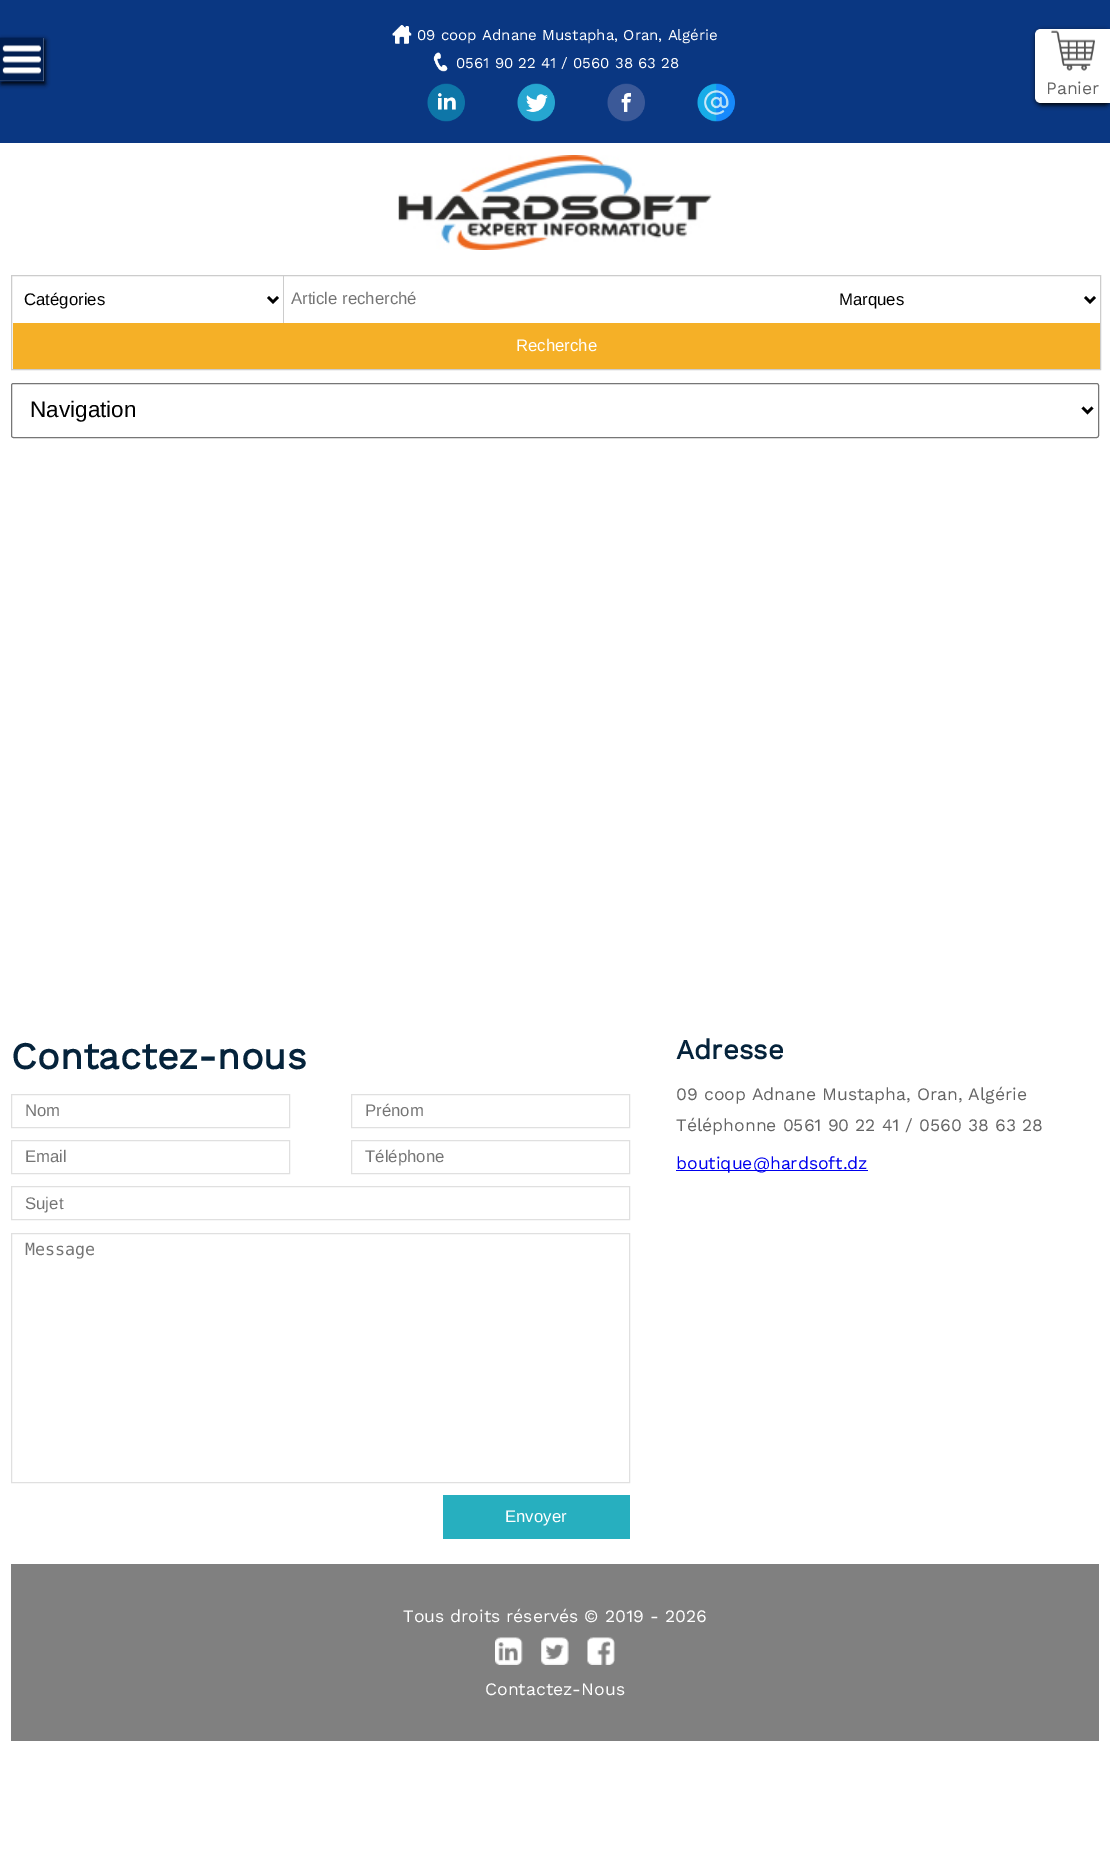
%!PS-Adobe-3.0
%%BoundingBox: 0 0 1110 1870
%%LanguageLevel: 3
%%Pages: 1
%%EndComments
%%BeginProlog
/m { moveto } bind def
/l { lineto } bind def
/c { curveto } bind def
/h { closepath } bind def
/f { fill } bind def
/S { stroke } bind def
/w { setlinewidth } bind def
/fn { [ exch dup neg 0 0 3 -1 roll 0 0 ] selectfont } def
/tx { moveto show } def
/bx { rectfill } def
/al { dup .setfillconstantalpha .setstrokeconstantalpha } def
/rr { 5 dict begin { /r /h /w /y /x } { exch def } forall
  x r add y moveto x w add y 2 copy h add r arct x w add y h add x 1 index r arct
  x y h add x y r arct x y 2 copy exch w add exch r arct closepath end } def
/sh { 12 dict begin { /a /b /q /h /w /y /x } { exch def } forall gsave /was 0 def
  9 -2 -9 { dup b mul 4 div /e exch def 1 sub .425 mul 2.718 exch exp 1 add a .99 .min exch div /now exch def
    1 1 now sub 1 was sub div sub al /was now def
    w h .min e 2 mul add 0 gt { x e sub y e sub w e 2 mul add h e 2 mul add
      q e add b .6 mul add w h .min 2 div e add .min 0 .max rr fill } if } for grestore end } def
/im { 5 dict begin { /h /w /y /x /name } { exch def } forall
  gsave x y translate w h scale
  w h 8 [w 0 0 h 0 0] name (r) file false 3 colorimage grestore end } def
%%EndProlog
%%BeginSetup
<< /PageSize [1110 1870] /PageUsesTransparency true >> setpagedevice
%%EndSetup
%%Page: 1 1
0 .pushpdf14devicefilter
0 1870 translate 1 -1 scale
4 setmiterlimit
1 setgray
0 0 1110 1870 bx
0.039 0.216 0.51 setrgbcolor
0 0 1110 143 bx
(image0.raw) 392 25 20 19 im
/WorkSans-Regular 15 fn
1 setgray
(09 coop Adnane Mustapha, Oran, Algérie) 417 40 tx
(image1.raw) 433 52 15 20 im
(0561 90 22 41 / 0560 38 63 28) 456 68 tx
(image2.raw) 427 83 38 39 im
(image3.raw) 517 83 38 39 im
(image4.raw) 607 83 38 39 im
(image5.raw) 697 83 38 39 im
0 setgray
1 40 44 44 0 2.5 1 sh
1 setgray
0 38 44 43 bx
(image6.raw) 0 37 44 45 im
0 setgray
1036 31 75 74 6 2.5 1 sh
1 setgray
1041 29 m 1110 29 l 1110 103 l 1041 103 l 1037.5 103 1035 100.5 1035 97 c 1035 35 l 1035 31.5 1037.5 29 1041 29 c h f
(image7.raw) 1051 30 44 41 im
/WorkSans-Regular 17.5 fn
0.392 setgray
(Panier) 1046 94 tx
(image8.raw) 398 155 314 95 im
0.8 setgray
11.5 275.5 1089 94 rectstroke
283 276 1 47 bx
0 setgray
2.5 w
268 297 m 273 302 l 278 297 l S
/LiberationSans-Regular 16.75 fn
(Catégories) 24 305 tx
0.459 setgray
(Article recherché) 291 304 tx
0 setgray
1085 297 m 1090 302 l 1095 297 l S
(Marques) 839 305 tx
0.961 0.69 0.153 setrgbcolor
13 323 1087 46 bx
1 setgray
(Recherche) 516 351 tx
0.463 setgray
1 w
11.5 383.5 1087 54 2 rr S
0 setgray
2.5 w
1082.5 407.5 m 1087.5 412.5 l 1092.5 407.5 l S
/LiberationSans-Regular 22.5 fn
(Navigation) 30 417 tx
/WorkSans-Bold 37.5 fn
0.02 0.137 0.231 setrgbcolor
(Contactez-nous) 11 1069 tx
0.878 setgray
1 w
11.5 1094.5 278 33 rectstroke
/LiberationSans-Regular 16.75 fn
0.459 setgray
(Nom) 25 1116 tx
0.878 setgray
351.5 1094.5 278 33 rectstroke
0.459 setgray
(Prénom) 365 1116 tx
0.878 setgray
11.5 1140.5 278 33 rectstroke
0.459 setgray
(Email) 25 1162 tx
0.878 setgray
351.5 1140.5 278 33 rectstroke
0.459 setgray
(Téléphone) 365 1162 tx
0.878 setgray
11.5 1186.5 618 33 rectstroke
0.459 setgray
(Sujet) 25 1209 tx
0.878 setgray
11.5 1233.5 618 249 rectstroke
/DejaVuSansMono-Regular 16.75 fn
0.459 setgray
(Message) 25 1255 tx
0.153 0.686 0.749 setrgbcolor
443 1495 187 44 bx
/LiberationSans-Regular 16.75 fn
1 setgray
(Envoyer) 505 1522 tx
/WorkSans-Bold 27.5 fn
0.02 0.137 0.231 setrgbcolor
(Adresse) 676 1059 tx
/WorkSans-Regular 17.5 fn
0.392 setgray
(09 coop Adnane Mustapha, Oran, Algérie) 676 1100 tx
(Téléphonne 0561 90 22 41 / 0560 38 63 28) 676 1131 tx
0 0 0.933 setrgbcolor
676 1170 192 1 bx
(boutique@hardsoft.dz) 676 1169 tx
0.502 setgray
11 1564 1088 177 bx
1 setgray
(Tous droits réservés © 2019 - 2026) 403 1622 tx
(image9.raw) 495 1637 28 28 im
(image10.raw) 541 1637 28 28 im
(image11.raw) 587 1637 28 28 im
(Contactez-Nous) 485 1695 tx
.poppdf14devicefilter showpage
%%EOF
